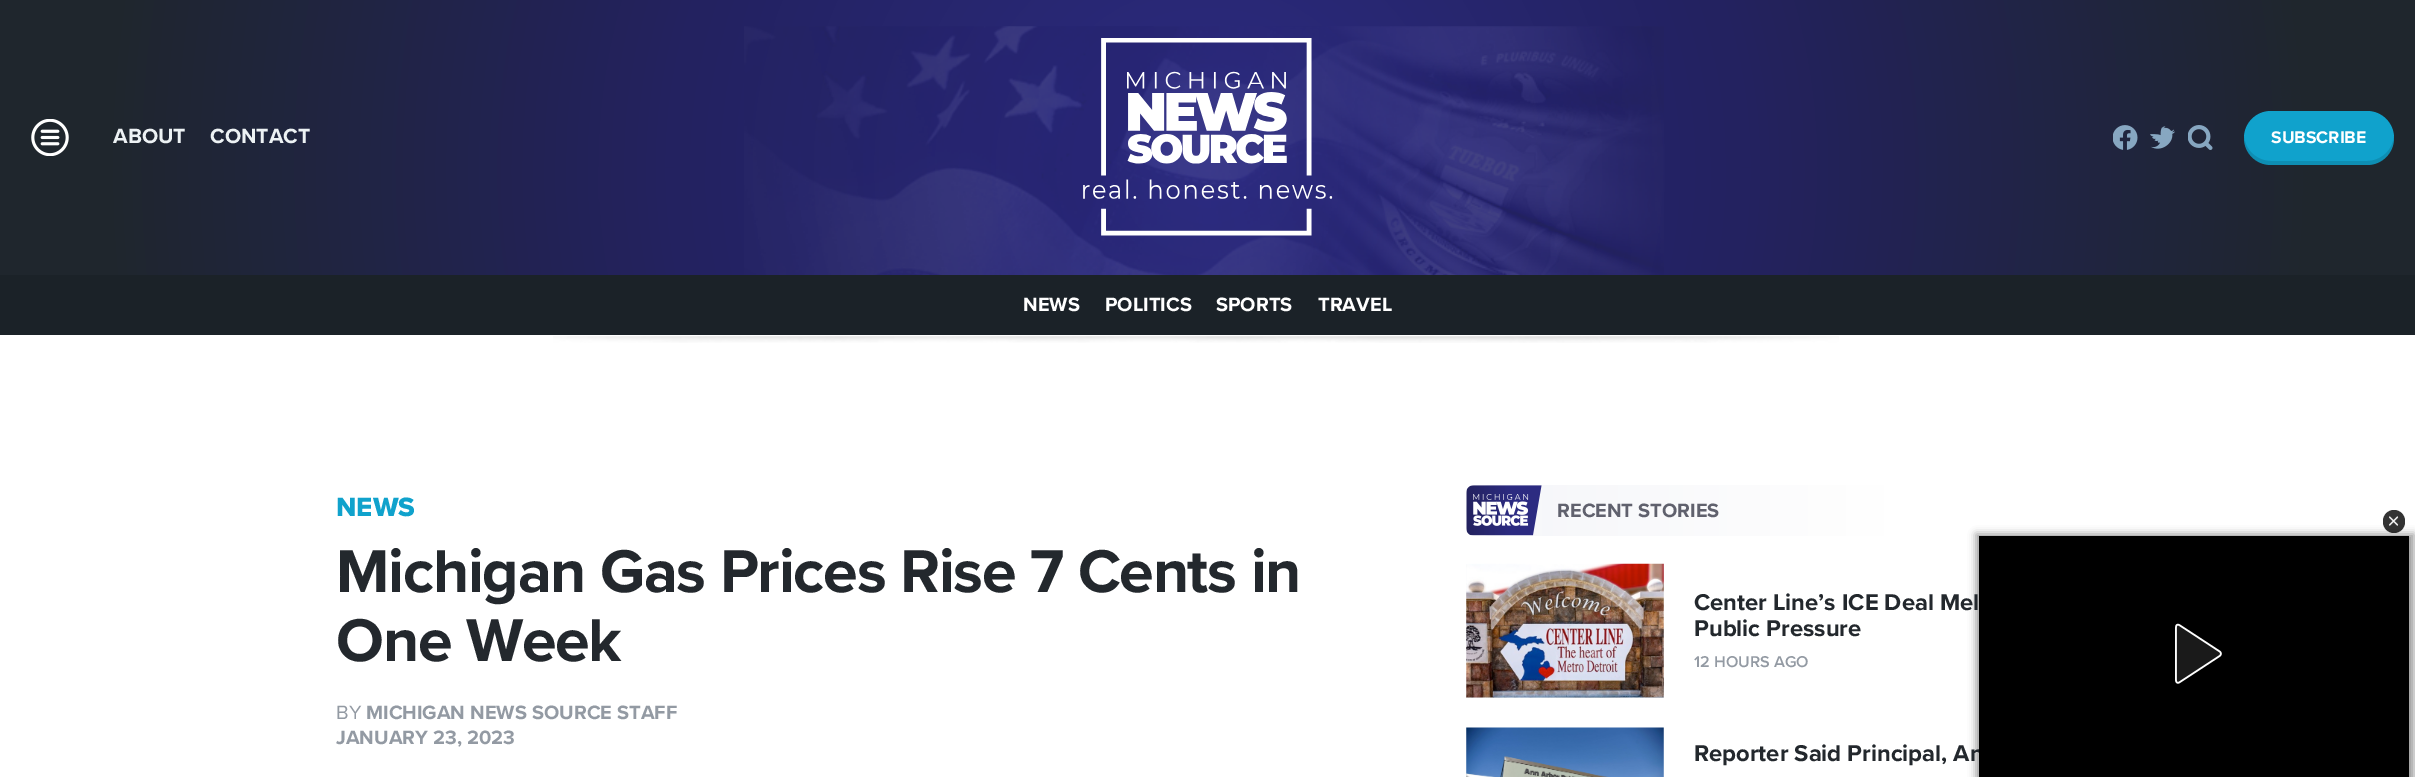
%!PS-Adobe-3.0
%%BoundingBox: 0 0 2415 777
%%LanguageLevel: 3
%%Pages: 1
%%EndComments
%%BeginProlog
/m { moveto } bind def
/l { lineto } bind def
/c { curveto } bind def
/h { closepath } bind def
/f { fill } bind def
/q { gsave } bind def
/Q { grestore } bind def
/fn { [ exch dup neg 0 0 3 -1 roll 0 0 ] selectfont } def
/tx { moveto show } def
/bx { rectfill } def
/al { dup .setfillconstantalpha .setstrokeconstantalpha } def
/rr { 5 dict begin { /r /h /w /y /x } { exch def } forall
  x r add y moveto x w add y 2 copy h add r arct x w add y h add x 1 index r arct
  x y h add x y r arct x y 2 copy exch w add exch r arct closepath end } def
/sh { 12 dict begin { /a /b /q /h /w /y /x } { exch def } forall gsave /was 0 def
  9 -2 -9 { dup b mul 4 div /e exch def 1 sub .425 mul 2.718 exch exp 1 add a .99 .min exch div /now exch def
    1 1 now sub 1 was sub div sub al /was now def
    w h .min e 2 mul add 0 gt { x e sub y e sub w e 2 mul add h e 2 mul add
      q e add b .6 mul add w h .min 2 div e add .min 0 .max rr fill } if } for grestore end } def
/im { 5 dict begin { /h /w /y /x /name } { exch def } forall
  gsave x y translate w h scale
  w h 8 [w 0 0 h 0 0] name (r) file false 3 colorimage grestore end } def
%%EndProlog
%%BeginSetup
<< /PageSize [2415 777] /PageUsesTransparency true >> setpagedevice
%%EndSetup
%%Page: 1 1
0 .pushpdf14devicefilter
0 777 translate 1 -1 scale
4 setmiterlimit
1 setgray
0 0 2415 777 bx
q 0 0 m 2415 0 l 2415 275 l 0 275 l h clip newpath 1208 168 translate 1219 1219 scale
<< /ShadingType 3 /ColorSpace /DeviceRGB /Coords [0 0 0 0 0 1] /Extend [true true] /Function << /FunctionType 3 /Domain [0 1] /Functions [<< /FunctionType 2 /Domain [0 1] /C0 [0.173 0.169 0.506] /C1 [0.137 0.133 0.373] /N 1 >> << /FunctionType 2 /Domain [0 1] /C0 [0.137 0.133 0.373] /C1 [0.122 0.149 0.176] /N 1 >> << /FunctionType 2 /Domain [0 1] /C0 [0.122 0.149 0.176] /C1 [0.122 0.149 0.176] /N 1 >>] /Bounds [0.45 0.91] /Encode [0 1 0 1 0 1] >> >> shfill Q
(image0.raw) 744 26 920 249 im
(image1.raw) 31 119 38 37 im
/ProximaNova-Bold 21.25 fn
0.929 0.949 0.957 setrgbcolor
(ABOUT) 113 143 tx
(CONTACT) 210 143 tx
(image2.raw) 1083 38 250 198 im
(image3.raw) 2113 125 25 25 im
(image4.raw) 2150 126 25 23 im
(image5.raw) 2188 125 25 25 im
0.063 0.635 0.8 setrgbcolor
2244 111 150 54 27 rr f
0.12 al
0 setgray
2244 136 m 2244 138 l 2244 153 2256 165 2271 165 c 2367 165 l 2382 165 2394 153 2394 138 c 2394 136 l 2393 150 2381 161 2367 161 c 2271 161 l 2257 161 2245 150 2244 136 c h f
/ProximaNova-Bold 17.5 fn
1 al
1 setgray
(SUBSCRIBE) 2271 143 tx
0.106 0.133 0.157 setrgbcolor
0 275 2415 60 bx
/ProximaNova-Bold 20 fn
1 setgray
(NEWS) 1023 311 tx
(POLITICS) 1105 311 tx
(SPORTS) 1216 311 tx
(TRAVEL) 1318 311 tx
(image6.raw) 553 336 1286 7 im
/ProximaNova-ExtraBold 27.5 fn
0.063 0.635 0.8 setrgbcolor
(NEWS) 336 516 tx
/ProximaNova-Bold 62.5 fn
0.137 0.157 0.176 setrgbcolor
336 592 m -1.25 0 (Michigan Gas Prices Rise 7 Cents in) ashow
336 661 m -1.25 0 (One Week) ashow
/ProximaNova-Regular 20 fn
0.576 0.604 0.639 setrgbcolor
(BY) 336 719 tx
/ProximaNova-Bold 20 fn
(MICHIGAN NEWS SOURCE STAFF) 366 719 tx
(JANUARY 23, 2023) 336 744 tx
0.2 setgray
2383 510 22 23 11 rr f
(image7.raw) 2389 516 10 10 im
q 1491.5 485 m 2074 485 l 2074 536 l 1491.5 536 l 1477.5 536 1466 524.5 1466 510.5 c 1466 496.5 1477.5 485 1491.5 485 c h clip newpath
<< /ShadingType 2 /ColorSpace /DeviceRGB /Coords [1466 511 2074 511] /Extend [true true] /Function << /FunctionType 3 /Domain [0 1] /Functions [<< /FunctionType 2 /Domain [0 1] /C0 [0.961 0.965 0.976] /C1 [1 1 1] /N 1 >> << /FunctionType 2 /Domain [0 1] /C0 [1 1 1] /C1 [1 1 1] /N 1 >>] /Bounds [0.7] /Encode [0 1 0 1] >> >> shfill Q
0 setgray
1976 534 438 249 0 4 0.4 sh
/ProximaNova-Bold 23.75 fn
0.137 0.157 0.176 setrgbcolor
(Reporter Said Principal, An) 1694 761 tx
0 setgray
1979 536 430 241 bx
(image8.raw) 2175 623 47 61 im
(image9.raw) 1466 485 76 51 im
/ProximaNova-Bold 20 fn
0.376 0.38 0.427 setrgbcolor
(RECENT STORIES) 1557 517 tx
0.961 0.965 0.976 setrgbcolor
1466 564 198 134 bx
(image10.raw) 1466 563 198 135 im
/ProximaNova-Bold 23.75 fn
0.137 0.157 0.176 setrgbcolor
(Center Line’s ICE Deal Mel) 1694 610 tx
(Public Pressure) 1694 636 tx
/ProximaNova-SemiBold 16.25 fn
0.576 0.604 0.639 setrgbcolor
(12 HOURS AGO) 1694 667 tx
(image11.raw) 1466 727 198 50 im
.poppdf14devicefilter showpage
%%EOF
